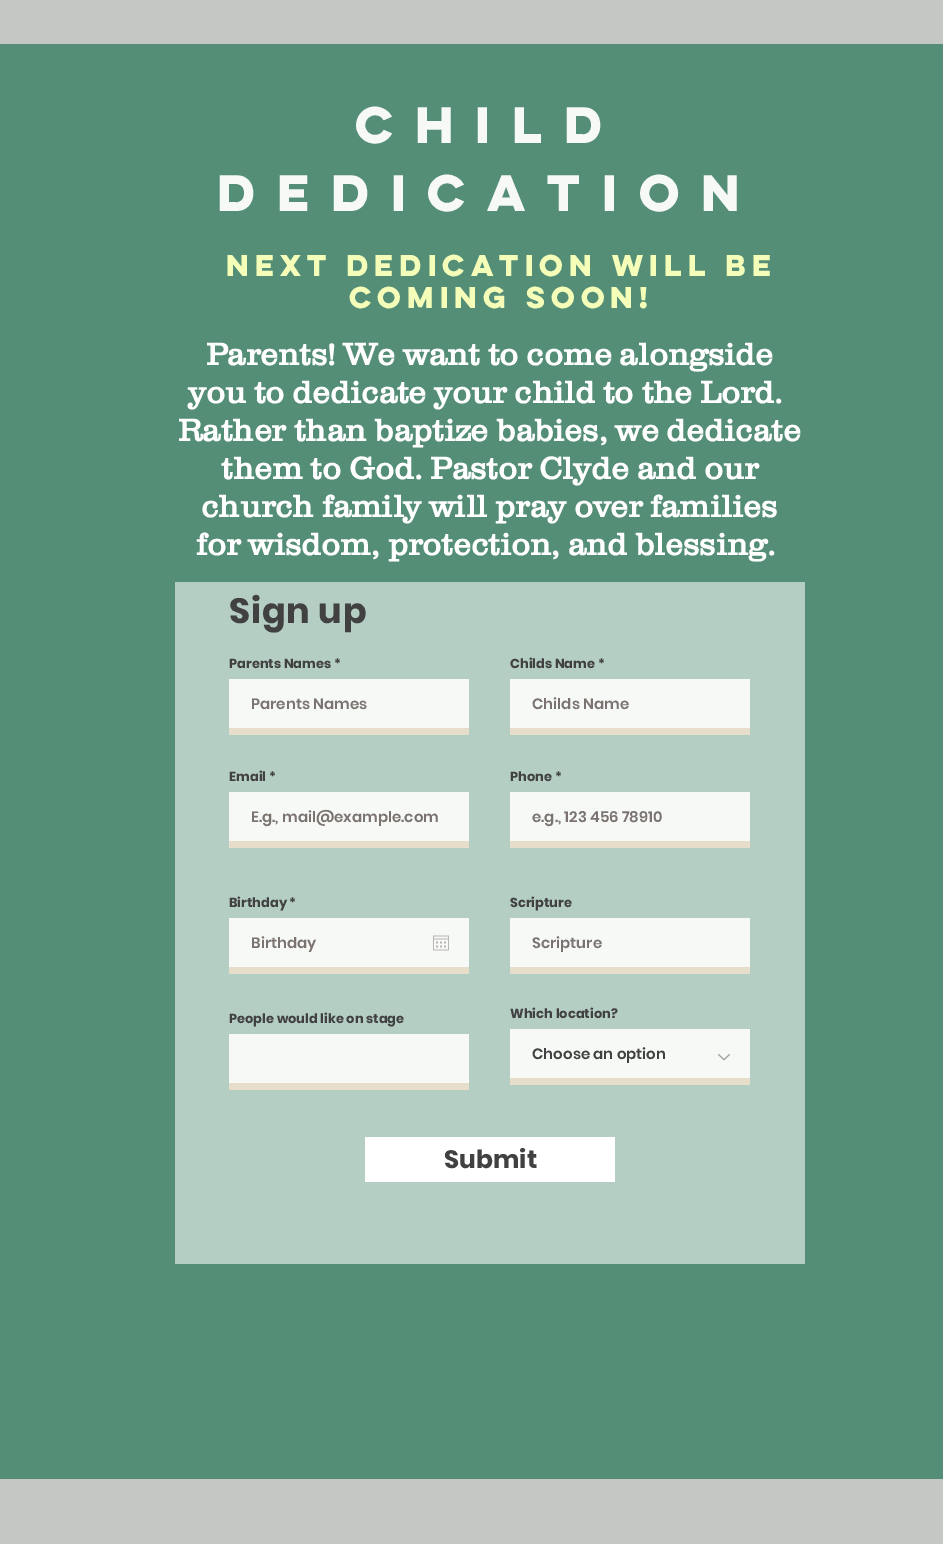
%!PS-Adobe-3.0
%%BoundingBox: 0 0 943 1544
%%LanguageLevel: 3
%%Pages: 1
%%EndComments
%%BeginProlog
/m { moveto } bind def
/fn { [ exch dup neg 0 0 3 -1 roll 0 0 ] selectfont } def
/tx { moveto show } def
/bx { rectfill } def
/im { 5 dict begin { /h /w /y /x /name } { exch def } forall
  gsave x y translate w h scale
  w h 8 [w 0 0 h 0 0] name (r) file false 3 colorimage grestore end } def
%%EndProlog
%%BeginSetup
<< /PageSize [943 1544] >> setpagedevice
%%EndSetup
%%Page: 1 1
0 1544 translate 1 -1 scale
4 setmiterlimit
0.773 0.78 0.769 setrgbcolor
0 0 943 1544 bx
0.329 0.557 0.467 setrgbcolor
0 44 943 1435 bx
/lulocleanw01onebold-Bold 46 fn
0.965 0.976 0.961 setrgbcolor
355 143 m 11.5 0 (Child) ashow
217 211 m 11.5 0 (Dedication) ashow
/lulocleanw01onebold-Bold 27 fn
0.961 0.996 0.722 setrgbcolor
(Next Dedication will be) 226 276 tx
(coming soon!) 349 308 tx
/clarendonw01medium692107-Bold 32 fn
1 setgray
(Parents! We want to come alongside) 206 365 tx
(you to dedicate your child to the Lord.) 188 403 tx
(Rather than baptize babies, we dedicate) 178 441 tx
(them to God. Pastor Clyde and our) 221 479 tx
(church family will pray over families) 201 517 tx
(for wisdom, protection, and blessing.) 196 555 tx
0.706 0.808 0.765 setrgbcolor
175 582 630 682 bx
/Poppins-Bold 35 fn
0.255 setgray
229 623 m 0.75 0 (Sign up) ashow
/Poppins-Bold 13 fn
(Parents Names *) 229 668 tx
0.965 0.976 0.961 setrgbcolor
229 679 240 49 bx
0.902 0.871 0.792 setrgbcolor
229 728 240 7 bx
/Poppins-SemiBold 15 fn
0.478 0.451 0.435 setrgbcolor
(Parents Names) 251 709 tx
/Poppins-Bold 13 fn
0.255 setgray
(Childs Name *) 510 668 tx
0.965 0.976 0.961 setrgbcolor
510 679 240 49 bx
0.902 0.871 0.792 setrgbcolor
510 728 240 7 bx
/Poppins-SemiBold 15 fn
0.478 0.451 0.435 setrgbcolor
(Childs Name) 532 709 tx
/Poppins-Bold 13 fn
0.255 setgray
(Email *) 229 781 tx
0.965 0.976 0.961 setrgbcolor
229 792 240 49 bx
0.902 0.871 0.792 setrgbcolor
229 841 240 7 bx
/Poppins-SemiBold 15 fn
0.478 0.451 0.435 setrgbcolor
(E.g., mail@example.com) 251 822 tx
/Poppins-Bold 13 fn
0.255 setgray
(Phone *) 510 781 tx
0.965 0.976 0.961 setrgbcolor
510 792 240 49 bx
0.902 0.871 0.792 setrgbcolor
510 841 240 7 bx
/Poppins-SemiBold 15 fn
0.478 0.451 0.435 setrgbcolor
(e.g., 123 456 78910) 532 822 tx
/Poppins-Bold 13 fn
0.255 setgray
(Birthday *) 229 907 tx
0.965 0.976 0.961 setrgbcolor
229 918 240 49 bx
0.902 0.871 0.792 setrgbcolor
229 967 240 7 bx
/Poppins-SemiBold 15 fn
0.478 0.451 0.435 setrgbcolor
(Birthday) 251 948 tx
(image0.raw) 433 935 16 16 im
/Poppins-Bold 13 fn
0.255 setgray
(Scripture) 510 907 tx
0.965 0.976 0.961 setrgbcolor
510 918 240 49 bx
0.902 0.871 0.792 setrgbcolor
510 967 240 7 bx
/Poppins-SemiBold 15 fn
0.478 0.451 0.435 setrgbcolor
(Scripture) 532 948 tx
/Poppins-Bold 13 fn
0.255 setgray
(People would like on stage) 229 1023 tx
0.965 0.976 0.961 setrgbcolor
229 1034 240 49 bx
0.902 0.871 0.792 setrgbcolor
229 1083 240 7 bx
0.255 setgray
(Which location?) 510 1018 tx
0.965 0.976 0.961 setrgbcolor
510 1029 240 49 bx
0.902 0.871 0.792 setrgbcolor
510 1078 240 7 bx
/Poppins-SemiBold 15 fn
0.255 setgray
(Choose an option) 532 1059 tx
(image1.raw) 718 1054 12 7 im
1 setgray
365 1137 250 45 bx
/Poppins-Bold 25 fn
0.255 setgray
(Submit) 444 1168 tx
showpage
%%EOF
